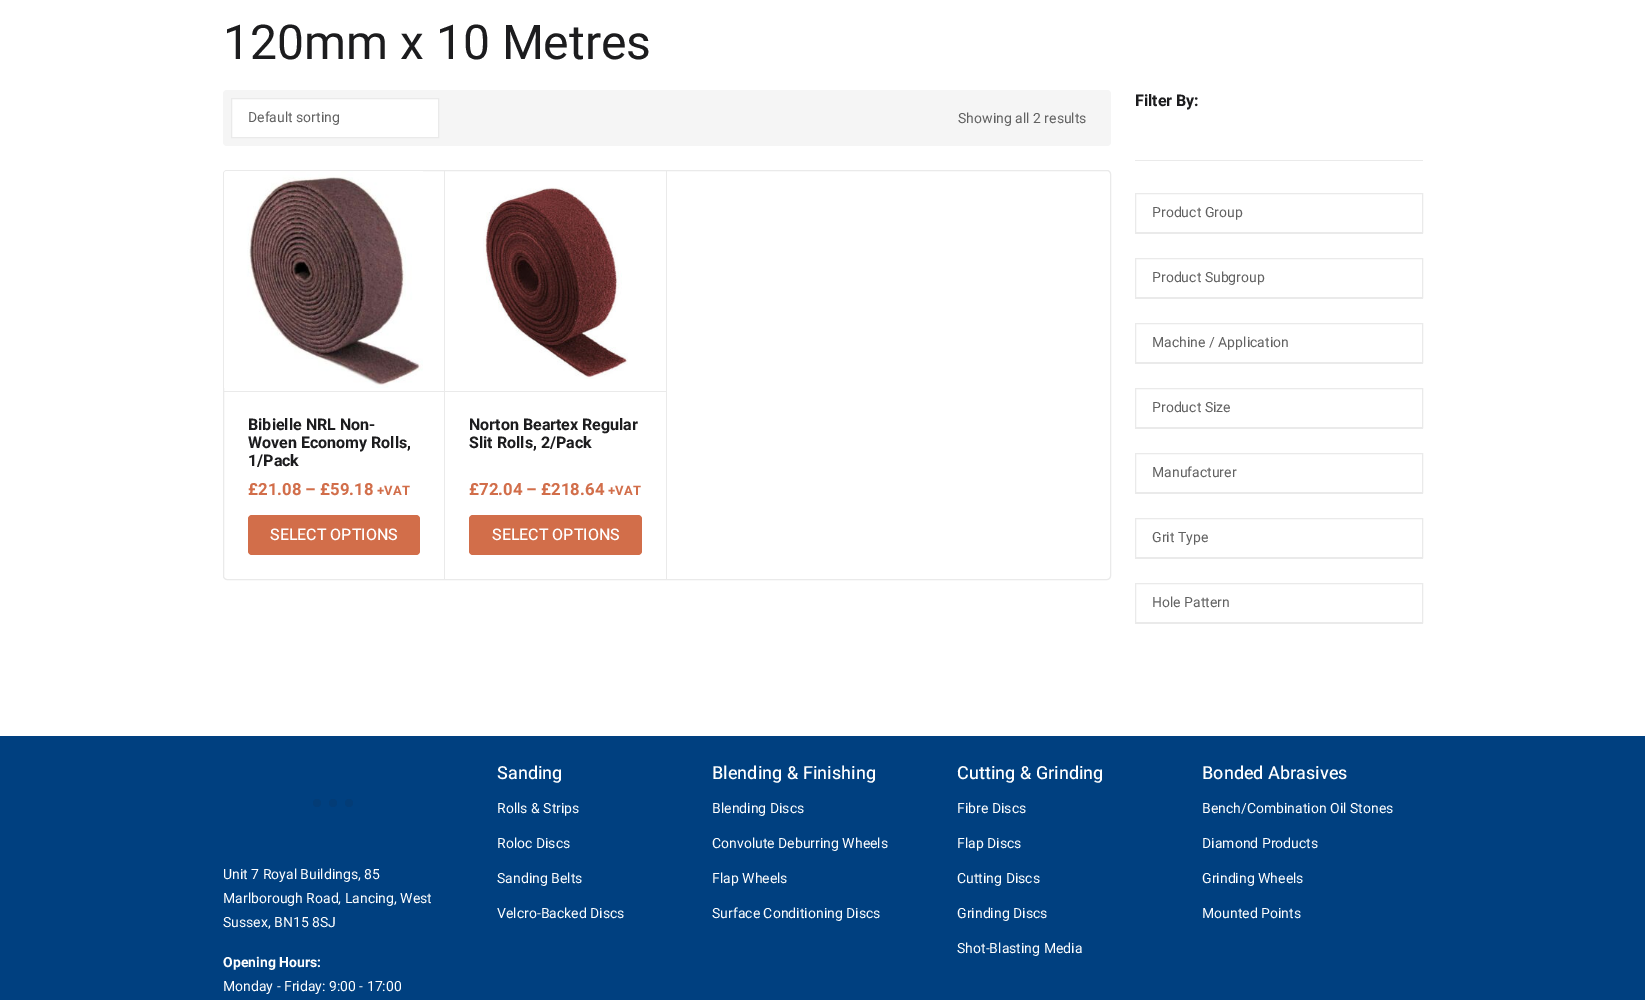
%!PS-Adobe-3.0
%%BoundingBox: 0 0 1645 1000
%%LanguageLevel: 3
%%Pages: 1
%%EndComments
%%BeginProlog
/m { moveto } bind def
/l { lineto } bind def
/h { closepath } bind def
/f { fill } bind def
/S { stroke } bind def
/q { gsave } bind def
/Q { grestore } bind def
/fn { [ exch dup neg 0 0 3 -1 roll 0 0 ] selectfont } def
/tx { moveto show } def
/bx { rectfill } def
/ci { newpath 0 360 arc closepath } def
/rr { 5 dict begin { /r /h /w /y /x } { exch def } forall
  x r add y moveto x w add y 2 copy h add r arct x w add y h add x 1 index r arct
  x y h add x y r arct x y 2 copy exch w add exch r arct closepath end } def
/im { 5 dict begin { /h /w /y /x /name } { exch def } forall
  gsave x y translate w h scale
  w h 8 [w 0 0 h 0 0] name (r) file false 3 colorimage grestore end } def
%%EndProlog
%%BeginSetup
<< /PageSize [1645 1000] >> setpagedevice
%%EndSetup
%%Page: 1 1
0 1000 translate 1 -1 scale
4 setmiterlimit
1 setgray
0 0 1645 1000 bx
/Heebo-Regular 48 fn
0.11 0.11 0.118 setrgbcolor
(120mm x 10 Metres) 223 59 tx
0.961 setgray
223 90 888 56 4 rr f
1 setgray
231.5 98.5 m 438.5 98.5 l 438.5 137.5 l 231.5 137.5 l h q f Q
0.918 setgray
S
/Heebo-Regular 14 fn
0.38 setgray
(Default sorting) 248 122 tx
(Showing all 2 results) 958 123 tx
0.918 setgray
223.5 170.5 887 409 3.5 rr S
(image0.raw) 224 171 199 217 im
224 391 220 1 bx
/Heebo-Bold 16 fn
0.11 0.11 0.118 setrgbcolor
(Bibielle NRL Non-) 248 430 tx
(Woven Economy Rolls,) 248 448 tx
(1/Pack) 248 466 tx
/Heebo-Bold 16.75 fn
0.824 0.431 0.29 setrgbcolor
(£21.08 – £59.18) 248 495 tx
/Heebo-Bold 13 fn
(+VAT) 377 495 tx
248 515 172 40 4 rr f
/Heebo-Medium 16 fn
1 setgray
(SELECT OPTIONS) 270 540 tx
0.918 setgray
445 171 m 445 579 l 444 579 l 444 171 l h 667 171 m 667 579 l 666 579 l 666 171 l h eofill
(image1.raw) 483 187 145 192 im
445 391 221 1 bx
/Heebo-Bold 16 fn
0.11 0.11 0.118 setrgbcolor
(Norton Beartex Regular) 469 430 tx
(Slit Rolls, 2/Pack) 469 448 tx
/Heebo-Bold 16.75 fn
0.824 0.431 0.29 setrgbcolor
(£72.04 – £218.64) 469 495 tx
/Heebo-Bold 13 fn
(+VAT) 608 495 tx
469 515 173 40 4 rr f
/Heebo-Medium 16 fn
1 setgray
(SELECT OPTIONS) 492 540 tx
0.918 setgray
1135 160 288 1 bx
/Heebo-Bold 16 fn
0.11 0.11 0.118 setrgbcolor
(Filter By:) 1135 106 tx
0.918 setgray
1135 233 288 1 bx
1135.5 193.5 287 39 rectstroke
/Heebo-Regular 14 fn
0.38 setgray
(Product Group) 1152 217 tx
0.918 setgray
1135 298 288 1 bx
1135.5 258.5 287 39 rectstroke
0.38 setgray
(Product Subgroup) 1152 282 tx
0.918 setgray
1135 363 288 1 bx
1135.5 323.5 287 39 rectstroke
0.38 setgray
(Machine / Application) 1152 347 tx
0.918 setgray
1135 428 288 1 bx
1135.5 388.5 287 39 rectstroke
0.38 setgray
(Product Size) 1152 412 tx
0.918 setgray
1135 493 288 1 bx
1135.5 453.5 287 39 rectstroke
0.38 setgray
(Manufacturer) 1152 477 tx
0.918 setgray
1135 558 288 1 bx
1135.5 518.5 287 39 rectstroke
0.38 setgray
(Grit Type) 1152 542 tx
0.918 setgray
1135 623 288 1 bx
1135.5 583.5 287 39 rectstroke
0.38 setgray
(Hole Pattern) 1152 607 tx
0 0.251 0.502 setrgbcolor
0 736 1645 264 bx
0.012 0.235 0.463 setrgbcolor
317 803 4 ci f
333 803 4 ci f
349 803 4 ci f
1 setgray
(Unit 7 Royal Buildings, 85) 223 879 tx
(Marlborough Road, Lancing, West) 223 903 tx
(Sussex, BN15 8SJ) 223 927 tx
/Heebo-Bold 14 fn
(Opening Hours:) 223 967 tx
/Heebo-Regular 14 fn
(Monday - Friday: 9:00 - 17:00) 223 991 tx
/Heebo-Medium 18 fn
(Sanding) 497 779 tx
/Heebo-Regular 14 fn
(Rolls & Strips) 497 813 tx
(Roloc Discs) 497 848 tx
(Sanding Belts) 497 883 tx
(Velcro-Backed Discs) 497 918 tx
/Heebo-Medium 18 fn
(Blending & Finishing) 712 779 tx
/Heebo-Regular 14 fn
(Blending Discs) 712 813 tx
(Convolute Deburring Wheels) 712 848 tx
(Flap Wheels) 712 883 tx
(Surface Conditioning Discs) 712 918 tx
/Heebo-Medium 18 fn
(Cutting & Grinding) 957 779 tx
/Heebo-Regular 14 fn
(Fibre Discs) 957 813 tx
(Flap Discs) 957 848 tx
(Cutting Discs) 957 883 tx
(Grinding Discs) 957 918 tx
(Shot-Blasting Media) 957 953 tx
/Heebo-Medium 18 fn
(Bonded Abrasives) 1202 779 tx
/Heebo-Regular 14 fn
(Bench/Combination Oil Stones) 1202 813 tx
(Diamond Products) 1202 848 tx
(Grinding Wheels) 1202 883 tx
(Mounted Points) 1202 918 tx
showpage
%%EOF
